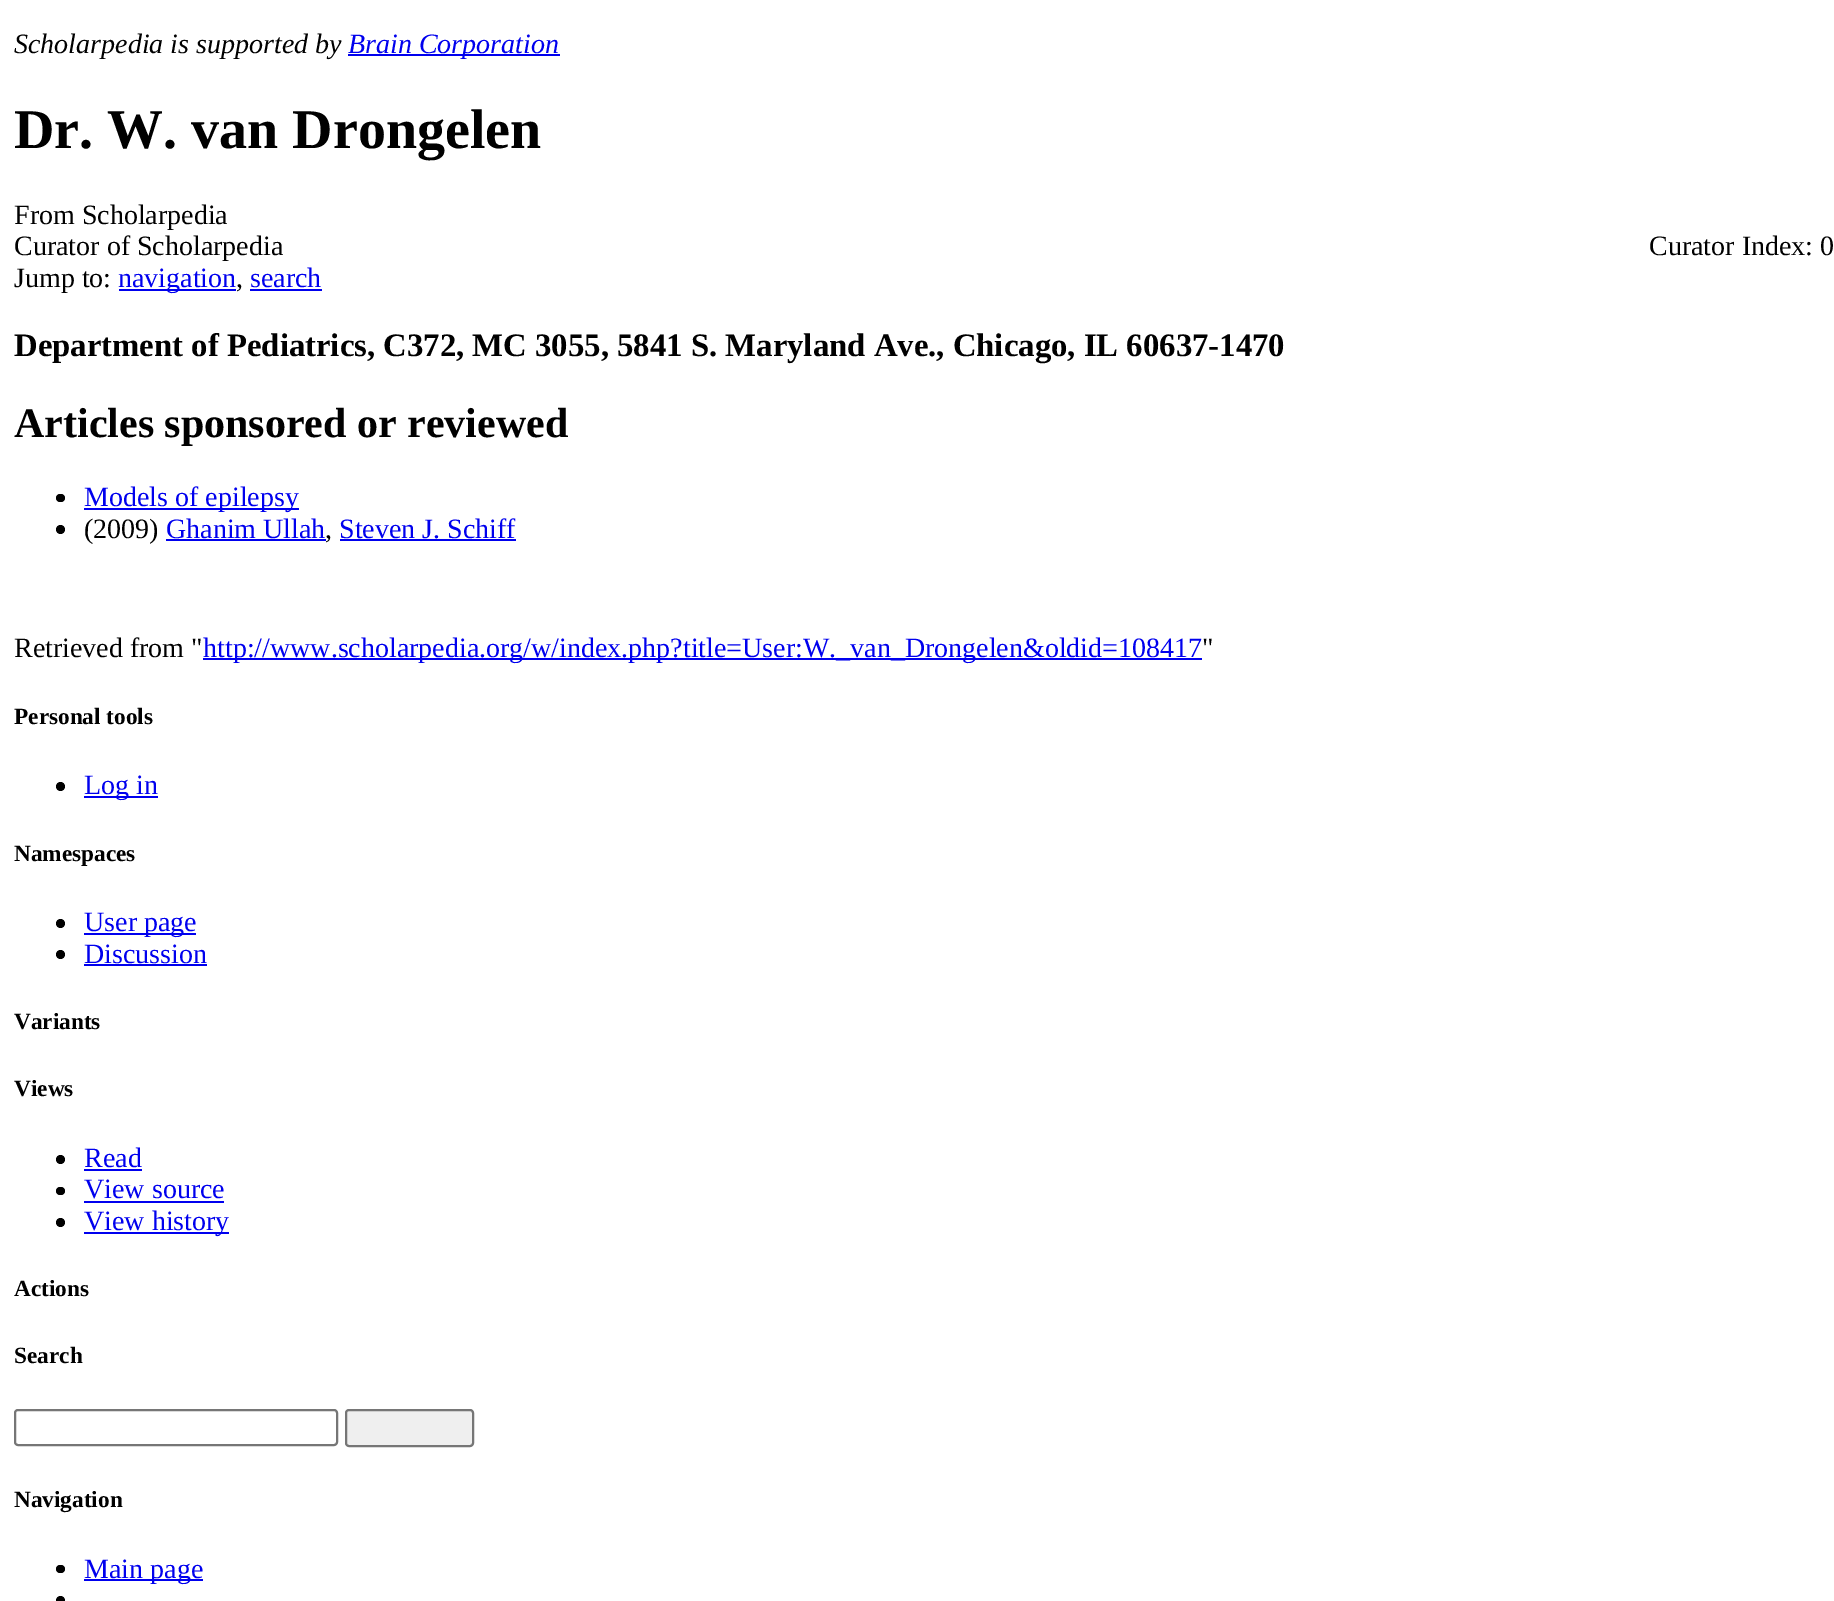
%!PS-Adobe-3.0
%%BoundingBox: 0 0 1834 1601
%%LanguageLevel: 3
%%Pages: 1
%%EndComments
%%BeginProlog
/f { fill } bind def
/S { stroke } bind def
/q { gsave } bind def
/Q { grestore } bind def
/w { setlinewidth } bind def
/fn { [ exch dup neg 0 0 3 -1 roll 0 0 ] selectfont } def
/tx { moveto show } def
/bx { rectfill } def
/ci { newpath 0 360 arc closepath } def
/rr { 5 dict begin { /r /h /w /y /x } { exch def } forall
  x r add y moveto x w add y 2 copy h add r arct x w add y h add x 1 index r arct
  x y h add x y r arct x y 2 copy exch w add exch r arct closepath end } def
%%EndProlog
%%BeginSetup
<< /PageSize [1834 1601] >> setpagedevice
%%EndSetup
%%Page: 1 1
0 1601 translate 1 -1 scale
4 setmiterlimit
1 setgray
0 0 1834 1601 bx
/LiberationSerif-Italic 28 fn
0 setgray
(Scholarpedia is supported by) 14 53 tx
0 0 0.933 setrgbcolor
348 54 212 2 bx
(Brain Corporation) 348 53 tx
/LiberationSerif-Bold 56 fn
0 setgray
(Dr. W. van Drongelen) 14 148 tx
/LiberationSerif-Regular 28 fn
(From Scholarpedia) 14 224 tx
(Curator of Scholarpedia) 14 255 tx
(Curator Index: 0) 1649 255 tx
(Jump to:) 14 287 tx
0 0 0.933 setrgbcolor
119 289 117 2 bx
(navigation) 118 287 tx
0 setgray
(,) 236 287 tx
0 0 0.933 setrgbcolor
(search) 250 287 tx
250 289 72 2 bx
/LiberationSerif-Bold 32.75 fn
0 setgray
(Department of Pediatrics, C372, MC 3055, 5841 S. Maryland Ave., Chicago, IL 60637-1470) 14 356 tx
/LiberationSerif-Bold 42 fn
(Articles sponsored or reviewed) 14 437 tx
56 494 9 8 4 rr f
0 0 0.933 setrgbcolor
84 508 215 2 bx
/LiberationSerif-Regular 28 fn
(Models of epilepsy) 84 506 tx
0 setgray
60.5 529.5 4.5 ci f
(\(2009\)) 84 538 tx
0 0 0.933 setrgbcolor
(Ghanim Ullah) 166 538 tx
(Steven J. Schiff) 339 538 tx
0 setgray
(,) 325 538 tx
0 0 0.933 setrgbcolor
166 539 160 2 bx
340 539 176 2 bx
0 setgray
(Retrieved from ") 14 657 tx
0 0 0.933 setrgbcolor
203 658 999 2 bx
(http://www.scholarpedia.org/w/index.php?title=User:W._van_Drongelen&oldid=108417) 203 657 tx
0 setgray
(") 1202 657 tx
/LiberationSerif-Bold 23.25 fn
(Personal tools) 14 724 tx
60.5 786.5 4.5 ci f
0 0 0.933 setrgbcolor
84 796 74 2 bx
/LiberationSerif-Regular 28 fn
(Log in) 84 794 tx
/LiberationSerif-Bold 23.25 fn
0 setgray
(Namespaces) 14 861 tx
60.5 923.5 4.5 ci f
0 0 0.933 setrgbcolor
84 933 112 2 bx
/LiberationSerif-Regular 28 fn
(User page) 84 931 tx
0 setgray
60.5 954.5 4.5 ci f
0 0 0.933 setrgbcolor
(Discussion) 84 963 tx
84 964 123 2 bx
/LiberationSerif-Bold 23.25 fn
0 setgray
(Variants) 14 1029 tx
(Views) 14 1096 tx
60.5 1159.5 4.5 ci f
/LiberationSerif-Regular 28 fn
0 0 0.933 setrgbcolor
(Read) 84 1167 tx
84 1169 58 2 bx
0 setgray
56 1187 9 8 4 rr f
0 0 0.933 setrgbcolor
(View source) 84 1198 tx
84 1201 140 2 bx
0 setgray
60.5 1222.5 4.5 ci f
0 0 0.933 setrgbcolor
84 1232 145 2 bx
(View history) 84 1230 tx
/LiberationSerif-Bold 23.25 fn
0 setgray
(Actions) 14 1296 tx
(Search) 14 1363 tx
0.463 setgray
2 w
15 1410 322 35 3 rr S
0.937 setgray
346 1410 127 36 3 rr q f Q
0.463 setgray
S
0 setgray
(Navigation) 14 1507 tx
56 1565 9 8 4 rr f
0 0 0.933 setrgbcolor
84 1579 119 2 bx
/LiberationSerif-Regular 28 fn
(Main page) 84 1578 tx
0 setgray
60.5 1600.5 4.5 ci f
showpage
%%EOF
